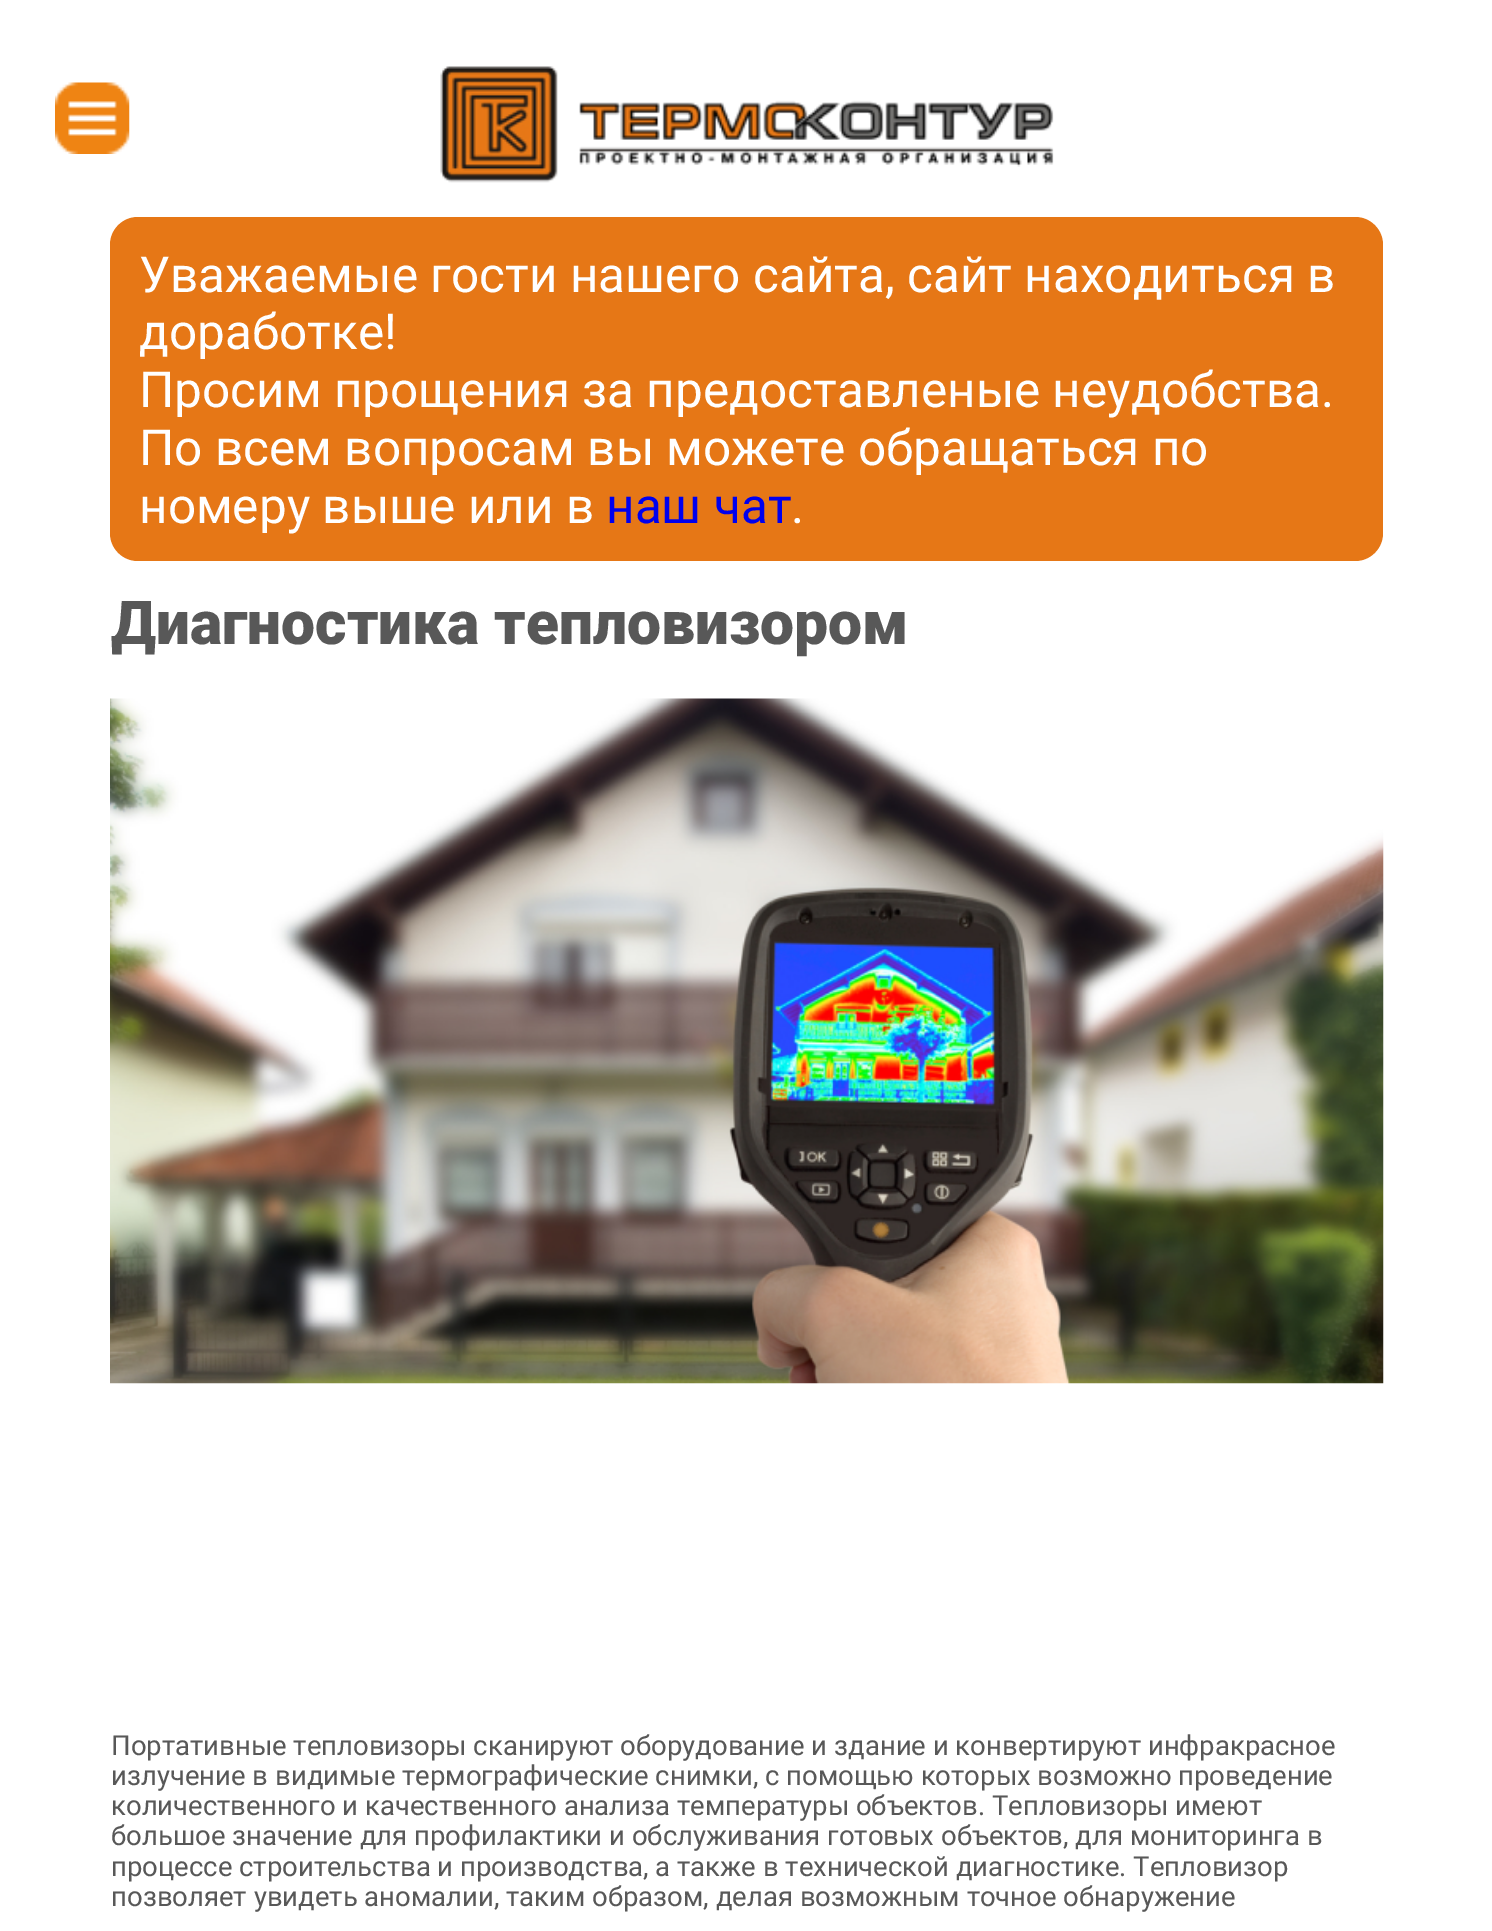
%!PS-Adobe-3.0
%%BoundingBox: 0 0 1492 1931
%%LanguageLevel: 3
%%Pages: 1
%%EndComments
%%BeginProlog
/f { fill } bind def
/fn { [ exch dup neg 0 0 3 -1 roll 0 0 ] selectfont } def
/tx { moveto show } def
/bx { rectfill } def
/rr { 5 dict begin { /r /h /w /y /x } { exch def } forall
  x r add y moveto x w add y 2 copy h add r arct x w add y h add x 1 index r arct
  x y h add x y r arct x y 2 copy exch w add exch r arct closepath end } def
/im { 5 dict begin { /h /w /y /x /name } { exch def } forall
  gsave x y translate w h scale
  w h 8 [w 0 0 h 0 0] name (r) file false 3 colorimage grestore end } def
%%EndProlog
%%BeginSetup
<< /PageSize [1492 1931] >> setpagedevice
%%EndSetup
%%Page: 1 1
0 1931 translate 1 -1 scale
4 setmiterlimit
1 setgray
0 0 1492 1931 bx
(image0.raw) 55 82 75 72 im
(image1.raw) 440 66 614 117 im
0.902 0.467 0.086 setrgbcolor
110 217 1273 344 28 rr f
/Roboto-Regular 49.5 fn
1 setgray
(Уважаемые гости нашего сайта, сайт находиться в) 139 292 tx
(доработке!) 139 349 tx
(Просим прощения за предоставленые неудобства.) 139 407 tx
(По всем вопросам вы можете обращаться по) 139 465 tx
(номеру выше или в) 139 523 tx
0 0 0.933 setrgbcolor
(наш чат) 606 523 tx
1 setgray
(.) 791 523 tx
/Roboto-Black 60.5 fn
0.345 setgray
(Диагностика тепловизором) 111 644 tx
(image2.raw) 110 698 1274 686 im
/Roboto-Regular 27.5 fn
(Портативные тепловизоры сканируют оборудование и здание и конвертируют инфракрасное) 111 1755 tx
(излучение в видимые термографические снимки, с помощью которых возможно проведение) 111 1785 tx
(количественного и качественного анализа температуры объектов. Тепловизоры имеют) 111 1815 tx
(большое значение для профилактики и обслуживания готовых объектов, для мониторинга в) 111 1845 tx
(процессе строительства и производства, а также в технической диагностике. Тепловизор) 111 1876 tx
(позволяет увидеть аномалии, таким образом, делая возможным точное обнаружение) 111 1906 tx
showpage
%%EOF
